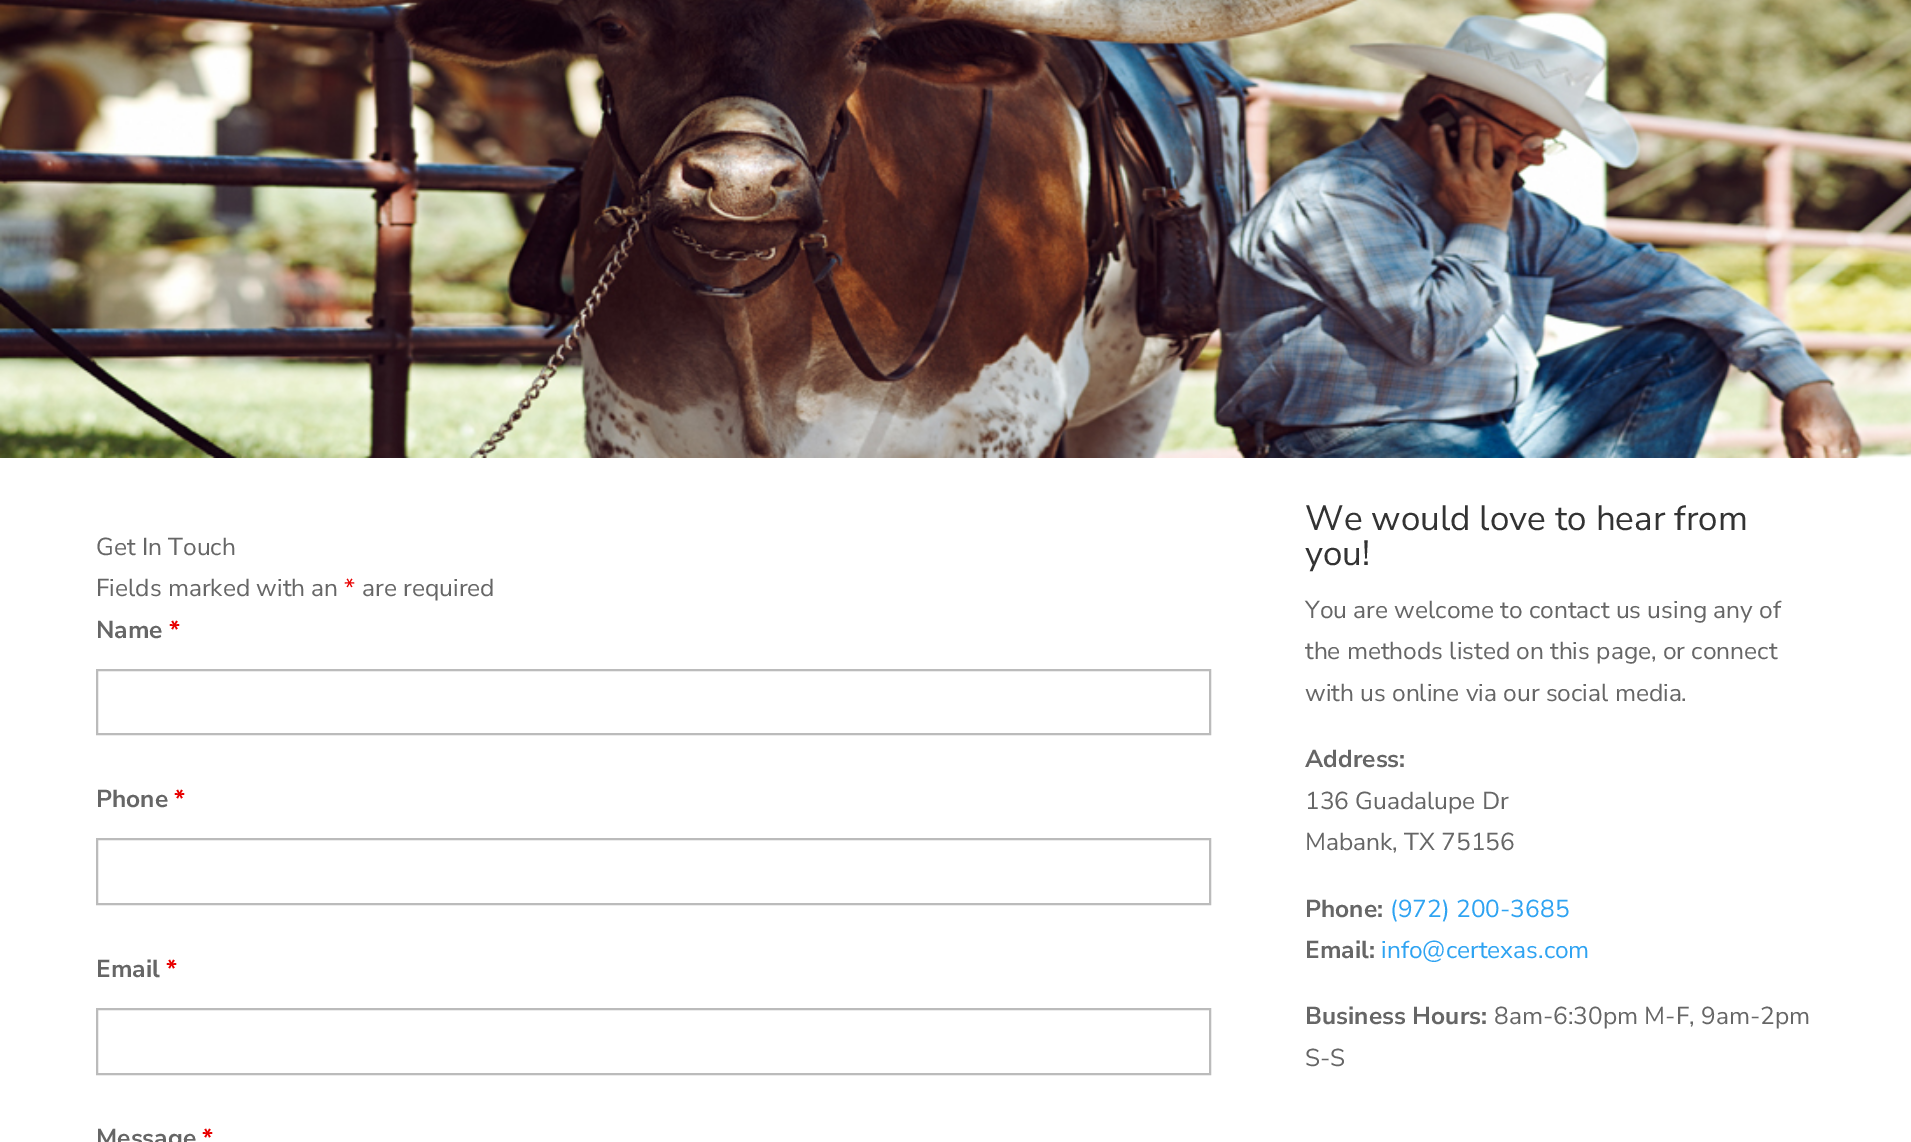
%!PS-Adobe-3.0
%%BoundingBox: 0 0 1911 1142
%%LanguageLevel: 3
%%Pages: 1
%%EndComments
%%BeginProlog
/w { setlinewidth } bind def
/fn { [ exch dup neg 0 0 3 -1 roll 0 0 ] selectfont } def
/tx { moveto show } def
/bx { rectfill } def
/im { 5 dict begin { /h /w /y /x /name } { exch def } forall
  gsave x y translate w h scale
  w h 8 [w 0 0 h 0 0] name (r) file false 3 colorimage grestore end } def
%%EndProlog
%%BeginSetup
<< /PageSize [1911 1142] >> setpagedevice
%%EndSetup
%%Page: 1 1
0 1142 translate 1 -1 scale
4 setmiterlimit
1 setgray
0 0 1911 1142 bx
(image0.raw) 0 0 1911 458 im
/NunitoSans-Regular 24.5 fn
0.4 setgray
(Get In Touch) 96 555 tx
(Fields marked with an) 96 596 tx
0.91 0 0 setrgbcolor
(*) 344 596 tx
0.4 setgray
(are required) 362 596 tx
/NunitoSans-Bold 24.5 fn
(Name) 96 638 tx
0.91 0 0 setrgbcolor
(*) 169 638 tx
0.733 setgray
2 w
97 670 1113 64 rectstroke
0.4 setgray
(Phone) 96 807 tx
0.91 0 0 setrgbcolor
(*) 174 807 tx
0.733 setgray
97 839 1113 65 rectstroke
0.4 setgray
(Email) 96 977 tx
0.91 0 0 setrgbcolor
(*) 166 977 tx
0.733 setgray
97 1009 1113 65 rectstroke
0.4 setgray
(Message) 96 1146 tx
0.91 0 0 setrgbcolor
(*) 202 1146 tx
/NunitoSans-Regular 35 fn
0.2 setgray
(We would love to hear from) 1305 530 tx
(you!) 1305 565 tx
/NunitoSans-Regular 24.5 fn
0.4 setgray
(You are welcome to contact us using any of) 1305 618 tx
(the methods listed on this page, or connect) 1305 659 tx
(with us online via our social media.) 1305 701 tx
/NunitoSans-Bold 24.5 fn
(Address:) 1305 767 tx
/NunitoSans-Regular 24.5 fn
(136 Guadalupe Dr) 1305 809 tx
(Mabank, TX 75156) 1305 850 tx
/NunitoSans-Bold 24.5 fn
(Phone:) 1305 917 tx
/NunitoSans-Regular 24.5 fn
0.18 0.639 0.949 setrgbcolor
(\(972\) 200-3685) 1390 917 tx
/NunitoSans-Bold 24.5 fn
0.4 setgray
(Email:) 1305 958 tx
/NunitoSans-Regular 24.5 fn
0.18 0.639 0.949 setrgbcolor
(info@certexas.com) 1381 958 tx
/NunitoSans-Bold 24.5 fn
0.4 setgray
(Business Hours:) 1305 1024 tx
/NunitoSans-Regular 24.5 fn
(8am-6:30pm M-F, 9am-2pm) 1494 1024 tx
(S-S) 1305 1066 tx
showpage
%%EOF
